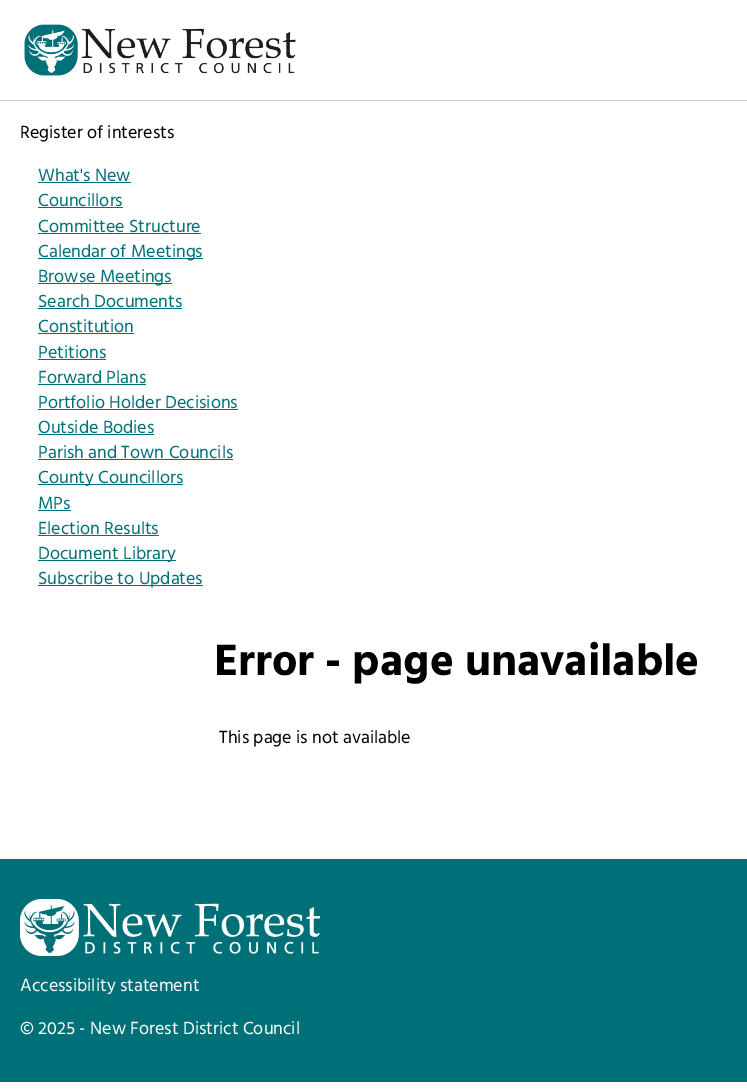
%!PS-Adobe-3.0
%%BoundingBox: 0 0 747 1090
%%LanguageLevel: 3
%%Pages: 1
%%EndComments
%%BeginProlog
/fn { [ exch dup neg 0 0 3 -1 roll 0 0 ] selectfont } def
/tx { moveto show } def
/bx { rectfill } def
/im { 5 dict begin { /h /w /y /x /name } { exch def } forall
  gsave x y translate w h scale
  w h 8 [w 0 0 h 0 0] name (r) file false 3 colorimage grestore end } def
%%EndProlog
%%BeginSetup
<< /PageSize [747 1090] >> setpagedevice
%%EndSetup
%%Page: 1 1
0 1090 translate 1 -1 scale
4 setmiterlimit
1 setgray
0 0 747 1090 bx
0.8 setgray
0 100 747 1 bx
(image0.raw) 24 24 272 52 im
/Hind-Regular 18 fn
0 setgray
(Register of interests) 20 138 tx
0 0.439 0.471 setrgbcolor
(What's New) 38 181 tx
38 182 93 1 bx
(Councillors) 38 206 tx
38 207 85 1 bx
(Committee Structure) 38 232 tx
38 233 163 1 bx
38 258 165 1 bx
(Calendar of Meetings) 38 257 tx
38 283 134 1 bx
(Browse Meetings) 38 282 tx
(Search Documents) 38 307 tx
38 308 144 1 bx
(Constitution) 38 332 tx
38 333 96 1 bx
(Petitions) 38 358 tx
38 359 68 1 bx
(Forward Plans) 38 383 tx
38 384 108 1 bx
(Portfolio Holder Decisions) 38 408 tx
38 409 200 1 bx
(Outside Bodies) 38 433 tx
38 434 116 1 bx
(Parish and Town Councils) 38 458 tx
38 459 195 1 bx
38 484 145 1 bx
(County Councillors) 38 483 tx
(MPs) 38 509 tx
38 510 33 1 bx
(Election Results) 38 534 tx
38 535 121 1 bx
38 560 138 1 bx
(Document Library) 38 559 tx
38 585 165 1 bx
(Subscribe to Updates) 38 584 tx
/Hind-Bold 45 fn
0 setgray
(Error - page unavailable) 214 675 tx
/Hind-Regular 18 fn
(This page is not available) 219 743 tx
0 0.439 0.471 setrgbcolor
0 859 747 223 bx
(image1.raw) 20 899 300 57 im
1 setgray
(Accessibility statement) 20 991 tx
(© 2025 - New Forest District Council) 20 1034 tx
showpage
%%EOF
